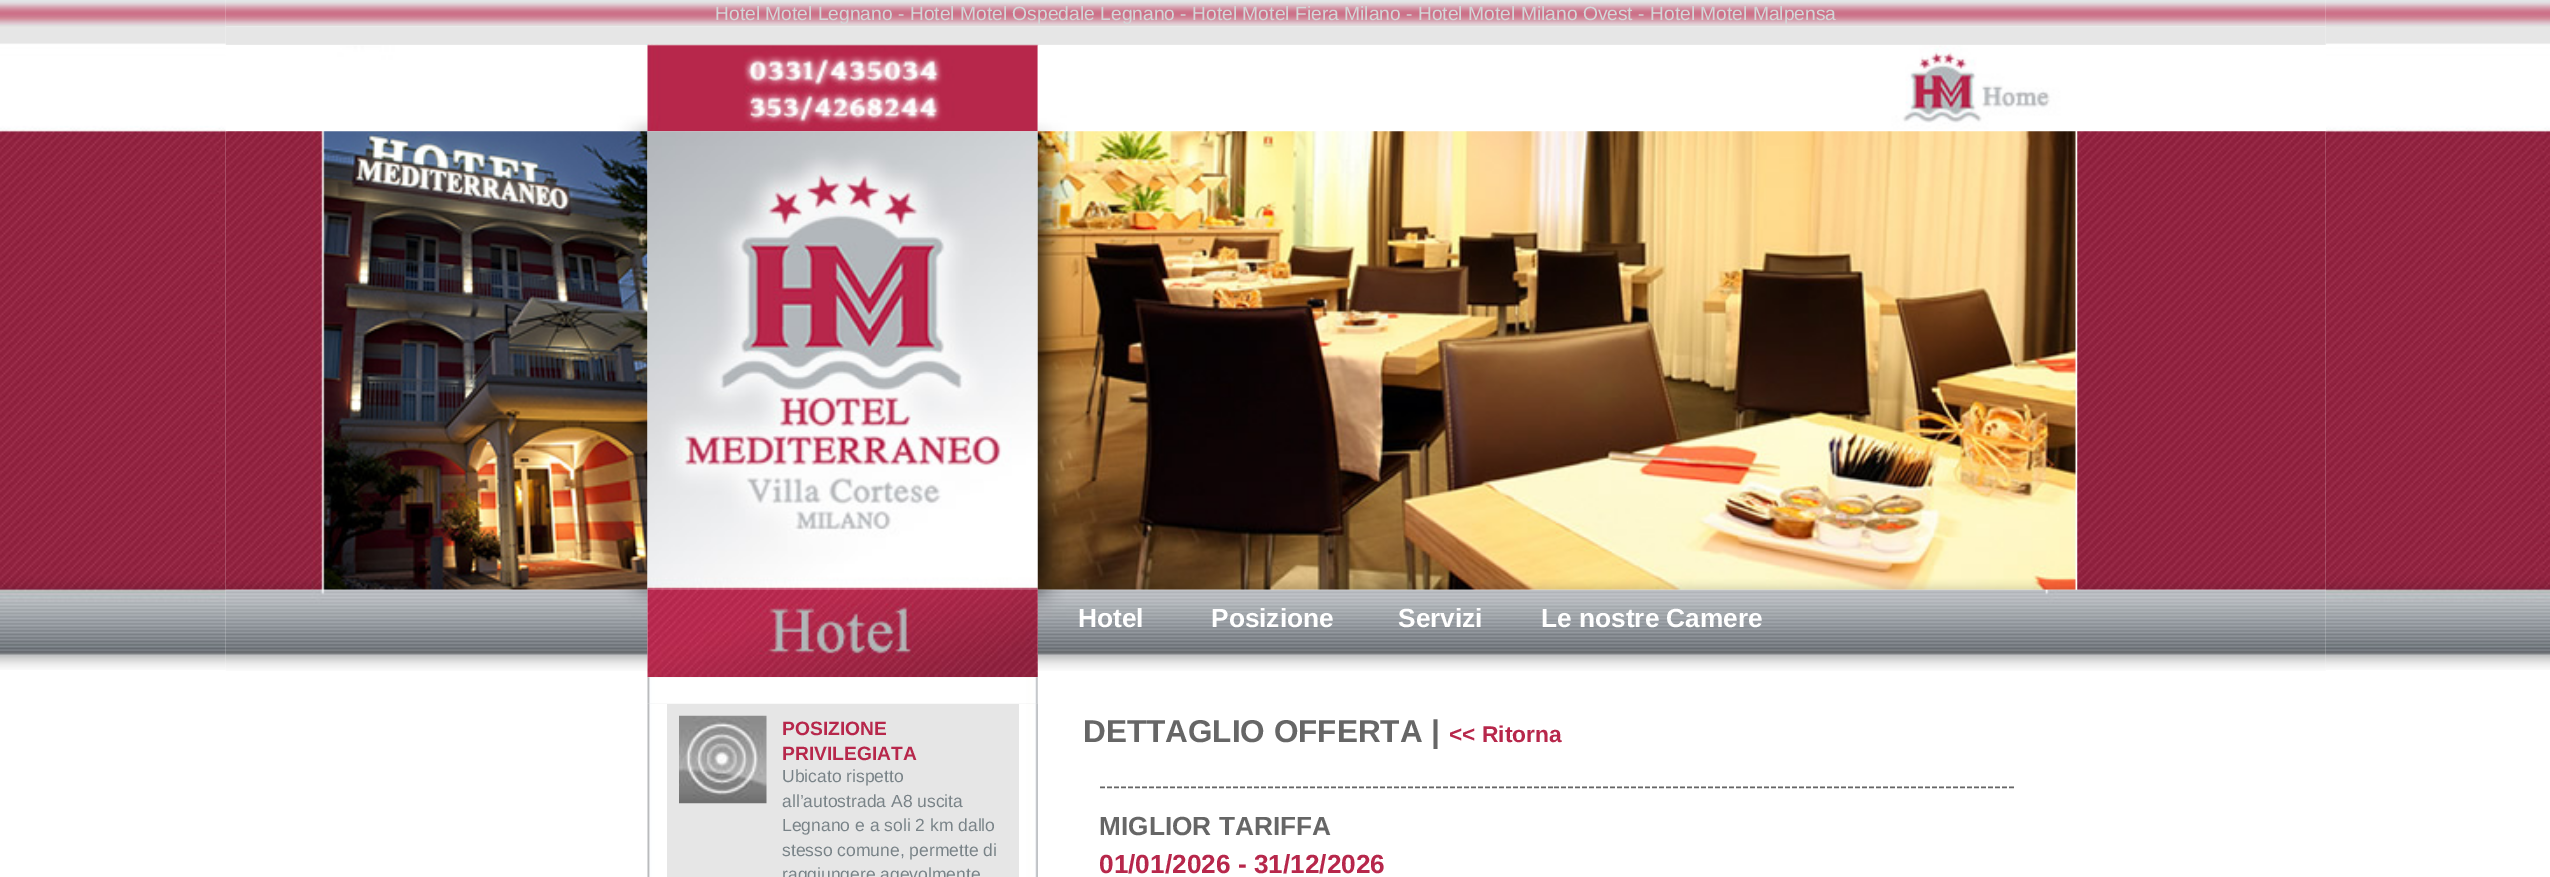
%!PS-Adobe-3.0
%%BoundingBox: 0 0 2550 877
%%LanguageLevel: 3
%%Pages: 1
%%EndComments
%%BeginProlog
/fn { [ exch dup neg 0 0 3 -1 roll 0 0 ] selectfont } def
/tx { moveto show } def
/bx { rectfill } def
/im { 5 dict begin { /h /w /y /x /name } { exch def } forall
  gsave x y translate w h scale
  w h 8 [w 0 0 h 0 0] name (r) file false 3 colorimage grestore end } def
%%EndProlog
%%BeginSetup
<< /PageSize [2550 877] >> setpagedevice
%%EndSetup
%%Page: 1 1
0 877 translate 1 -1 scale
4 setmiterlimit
1 setgray
0 0 2550 877 bx
(image0.raw) 0 0 226 670 im
(image16.raw) 2325 0 225 670 im
(image1.raw) 225 0 2101 27 im
/LiberationSans-Regular 19.25 fn
0.827 0.843 0.847 setrgbcolor
(Hotel Motel Legnano - Hotel Motel Ospedale Legnano - Hotel Motel Fiera Milano - Hotel Motel Milano Ovest - Hotel Motel Malpensa) 715 20 tx
(image2.raw) 225 26 2101 20 im
(image3.raw) 225 45 813 87 im
(image4.raw) 1037 45 1289 87 im
(image5.raw) 225 131 423 459 im
(image6.raw) 647 131 391 459 im
(image7.raw) 1037 131 1041 459 im
(image8.raw) 2077 131 249 459 im
(image9.raw) 225 589 423 82 im
(image11.raw) 1037 589 1289 82 im
(image10.raw) 647 589 391 89 im
/LiberationSans-Bold 26.25 fn
1 setgray
(Hotel) 1078 627 tx
(Posizione) 1211 627 tx
(Servizi) 1398 627 tx
(Le nostre Camere) 1541 627 tx
0.902 setgray
648 677 390 200 bx
(image13.raw) 647 703 391 174 im
(image12.raw) 647 677 391 27 im
667 704 352 173 bx
(image14.raw) 679 715 88 89 im
/LiberationSans-Bold 19.25 fn
0.718 0.153 0.294 setrgbcolor
(POSIZIONE) 782 735 tx
(PRIVILEGIATA) 782 760 tx
/LiberationSans-Regular 17.5 fn
0.475 0.514 0.533 setrgbcolor
(Ubicato rispetto) 782 782 tx
(all’autostrada A8 uscita) 782 807 tx
(Legnano e a soli 2 km dallo) 782 831 tx
(stesso comune, permette di) 782 856 tx
(raggiungere agevolmente) 782 880 tx
(image15.raw) 1037 677 1 27 im
/LiberationSans-Bold 31.5 fn
0.4 setgray
(DETTAGLIO OFFERTA |) 1083 742 tx
/LiberationSans-Bold 22.75 fn
0.718 0.153 0.294 setrgbcolor
(<< Ritorna) 1449 742 tx
/LiberationSans-Regular 21 fn
0.4 setgray
(-----------------------------------------------------------------------------------------------------------------------------------) 1099 793 tx
/LiberationSans-Bold 26.25 fn
(MIGLIOR TARIFFA) 1099 835 tx
0.718 0.153 0.294 setrgbcolor
(01/01/2026 - 31/12/2026) 1099 873 tx
showpage
%%EOF
